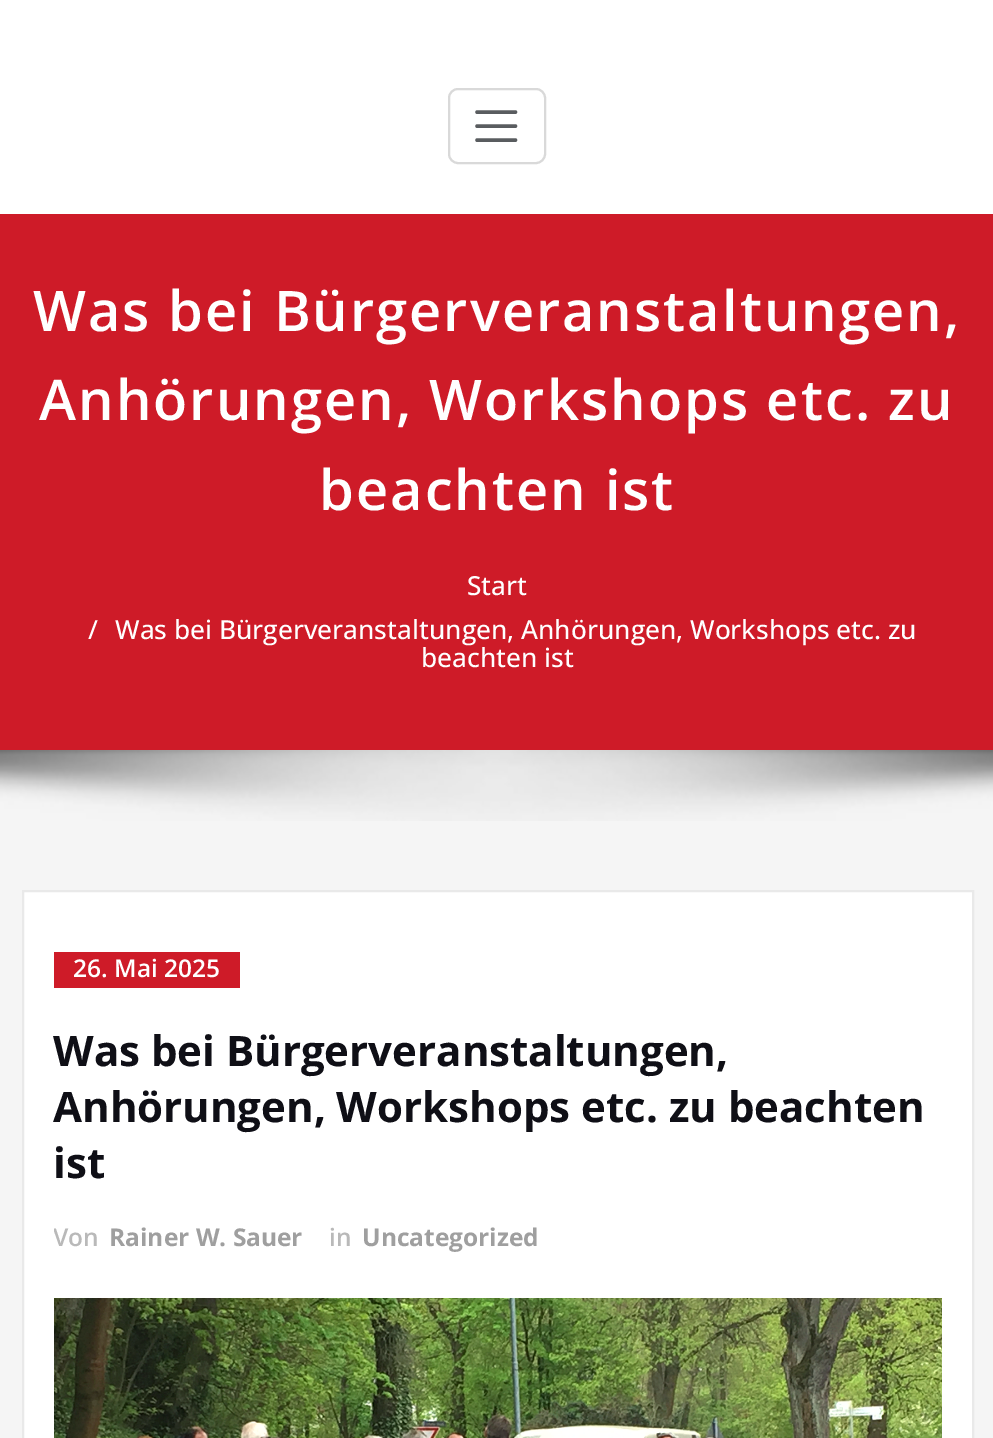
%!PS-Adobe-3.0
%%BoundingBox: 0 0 993 1438
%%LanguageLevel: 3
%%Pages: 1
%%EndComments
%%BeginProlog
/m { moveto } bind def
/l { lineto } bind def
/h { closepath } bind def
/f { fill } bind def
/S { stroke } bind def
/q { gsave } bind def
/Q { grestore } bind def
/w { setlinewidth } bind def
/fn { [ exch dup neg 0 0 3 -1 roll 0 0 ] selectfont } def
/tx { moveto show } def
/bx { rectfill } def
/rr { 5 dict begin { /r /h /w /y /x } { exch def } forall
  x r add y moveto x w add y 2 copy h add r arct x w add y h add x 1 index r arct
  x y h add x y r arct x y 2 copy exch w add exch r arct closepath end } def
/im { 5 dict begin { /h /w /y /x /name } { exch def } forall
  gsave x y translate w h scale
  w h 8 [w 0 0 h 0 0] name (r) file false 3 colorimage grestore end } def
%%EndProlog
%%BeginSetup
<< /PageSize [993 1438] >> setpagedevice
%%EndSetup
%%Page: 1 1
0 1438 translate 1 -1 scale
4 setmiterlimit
0.961 setgray
0 0 993 1438 bx
1 setgray
0 0 993 214 bx
0.851 setgray
2 w
449 89 96 74 9 rr S
0.349 0.361 0.373 setrgbcolor
3.5 w
1 setlinecap
477 112 m 515.5 112 l 477 126 m 515.5 126 l 477 140 m 515.5 140 l S
0.808 0.106 0.157 setrgbcolor
0 214 993 536 bx
/OpenSans-SemiBold 56 fn
1 setgray
33 331 m 2 0 (Was bei Bürgerveranstaltungen,) ashow
39 420 m 2 0 (Anhörungen, Workshops etc. zu) ashow
319 510 m 2 0 (beachten ist) ashow
/OpenSans-Medium 26.25 fn
(Start) 467 595 tx
(/) 88 639 tx
(Was bei Bürgerveranstaltungen, Anhörungen, Workshops etc. zu) 115 639 tx
(beachten ist) 421 667 tx
(image0.raw) 0 750 993 71 im
23 891 m 973 891 l 973 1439 l 23 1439 l h q f Q
0.914 setgray
2 w
0 setlinecap
S
0.808 0.106 0.157 setrgbcolor
54 952 186 36 bx
/OpenSans-SemiBold 24.5 fn
1 setgray
(26. Mai 2025) 73 977 tx
/OpenSans-Bold 42 fn
0.059 0.059 0.086 setrgbcolor
(Was bei Bürgerveranstaltungen,) 53 1066 tx
(Anhörungen, Workshops etc. zu beachten) 53 1122 tx
(ist) 53 1178 tx
q
54 1220 888 36 rectclip
/OpenSans-SemiBold 24.5 fn
0.725 setgray
(Von) 53 1246 tx
Q
/OpenSans-Bold 24.5 fn
0.624 setgray
(Rainer W. Sauer) 109 1246 tx
/OpenSans-SemiBold 24.5 fn
0.725 setgray
(in) 329 1246 tx
/OpenSans-Bold 24.5 fn
0.624 setgray
(Uncategorized) 362 1246 tx
(image1.raw) 54 1298 888 140 im
showpage
%%EOF
